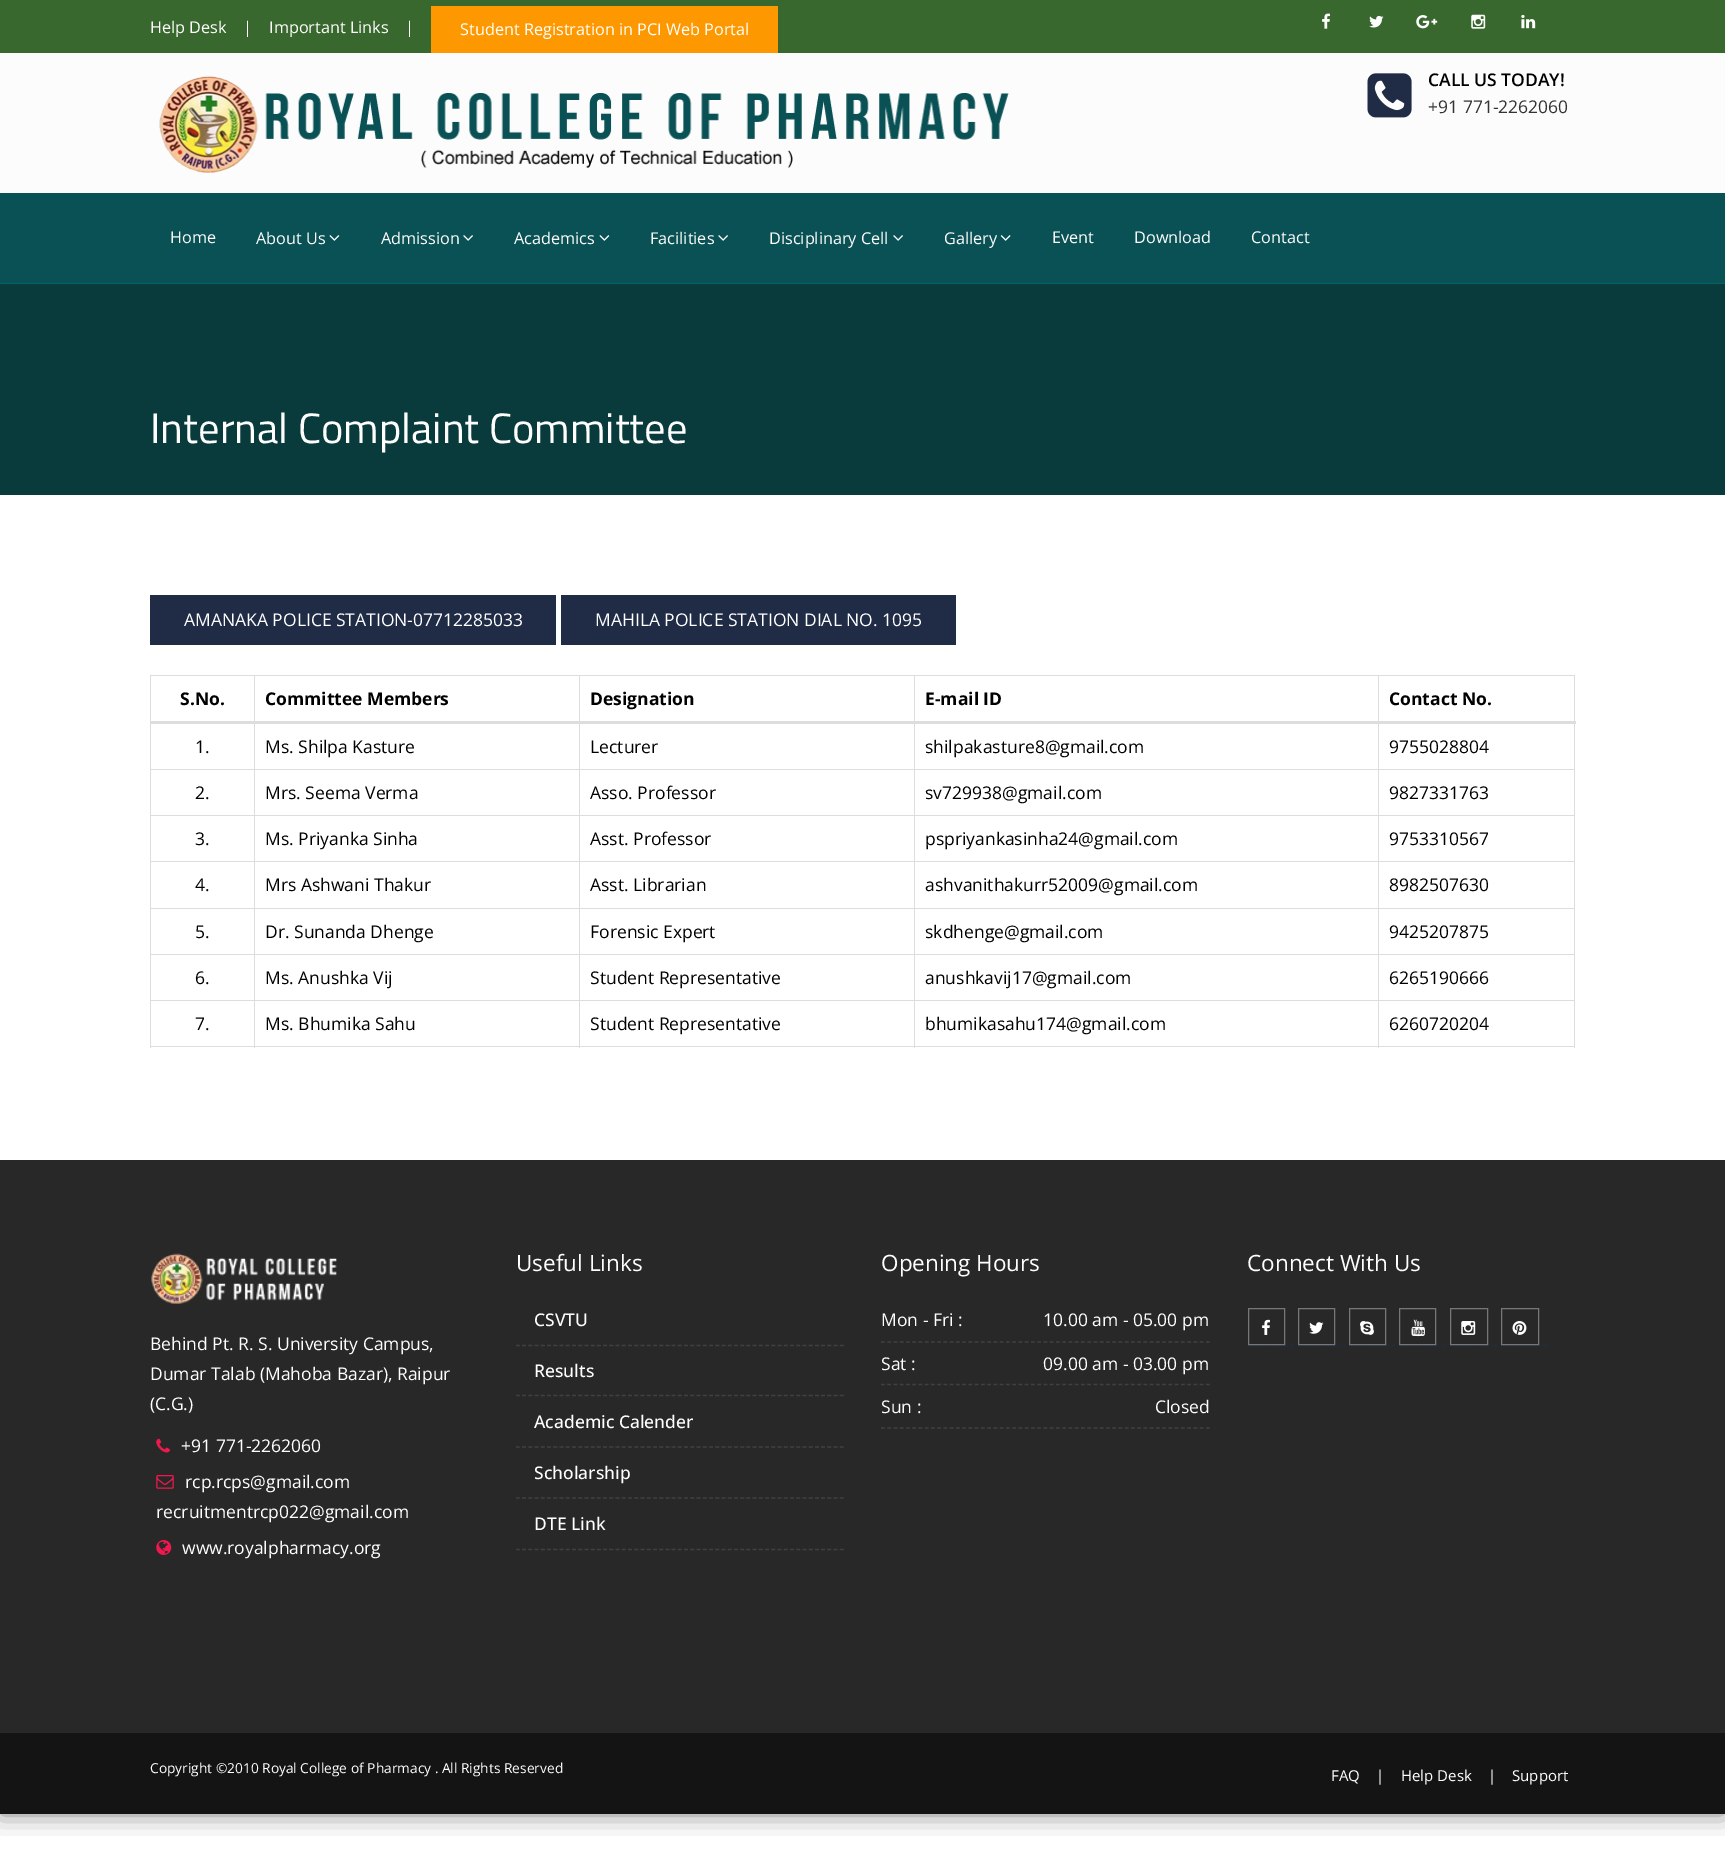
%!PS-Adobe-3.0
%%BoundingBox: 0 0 1725 1851
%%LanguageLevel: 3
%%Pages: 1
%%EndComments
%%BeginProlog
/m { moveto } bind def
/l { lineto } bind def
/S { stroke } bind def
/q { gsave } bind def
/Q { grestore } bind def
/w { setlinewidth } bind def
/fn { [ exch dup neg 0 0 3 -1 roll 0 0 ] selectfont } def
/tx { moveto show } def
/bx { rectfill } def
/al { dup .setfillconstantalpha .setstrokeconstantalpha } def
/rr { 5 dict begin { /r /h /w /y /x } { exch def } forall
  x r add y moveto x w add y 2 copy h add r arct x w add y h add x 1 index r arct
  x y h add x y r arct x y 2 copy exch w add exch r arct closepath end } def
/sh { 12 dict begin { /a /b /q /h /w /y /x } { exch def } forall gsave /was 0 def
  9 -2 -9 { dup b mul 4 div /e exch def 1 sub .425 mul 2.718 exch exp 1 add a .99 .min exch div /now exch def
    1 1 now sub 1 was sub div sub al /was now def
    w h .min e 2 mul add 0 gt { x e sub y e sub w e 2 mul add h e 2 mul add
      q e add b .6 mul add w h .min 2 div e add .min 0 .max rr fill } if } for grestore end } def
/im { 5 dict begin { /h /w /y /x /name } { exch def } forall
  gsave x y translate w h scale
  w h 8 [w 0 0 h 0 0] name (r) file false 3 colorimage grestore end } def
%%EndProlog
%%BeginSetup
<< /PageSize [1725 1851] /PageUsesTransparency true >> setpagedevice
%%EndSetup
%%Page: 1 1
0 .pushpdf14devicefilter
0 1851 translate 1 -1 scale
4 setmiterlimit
1 setgray
0 0 1725 1851 bx
q
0 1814 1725 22 rectclip
0 setgray
0 0 1725 1814 0 12.5 0.5 sh
Q
0.224 0.408 0.18 setrgbcolor
0 0 1725 53 bx
/OpenSans-Regular 16.25 fn
1 setgray
(Help Desk) 150 33 tx
(|) 243 33 tx
(Important Links) 269 33 tx
(|) 405 33 tx
0.992 0.596 0 setrgbcolor
431 6 347 47 bx
1 setgray
(Student Registration in PCI Web Portal) 460 35 tx
(image0.raw) 1322 13 8 16 im
(image1.raw) 1369 15 15 13 im
(image2.raw) 1416 15 22 14 im
(image3.raw) 1471 14 15 15 im
(image4.raw) 1521 14 15 15 im
0.988 setgray
0 53 1725 140 bx
(image5.raw) 158 75 851 98 im
(image6.raw) 1367 73 45 45 im
/OpenSans-SemiBold 17.5 fn
0 setgray
(CALL US TODAY!) 1428 86 tx
/OpenSans-Regular 17.5 fn
0.2 setgray
(+91 771-2262060) 1428 113 tx
0.035 0.318 0.329 setrgbcolor
0 193 1725 90 bx
/OpenSans-Regular 16.25 fn
1 setgray
(Home) 170 243 tx
(About Us) 256 244 tx
(image7.raw) 329 235 11 6 im
(Admission) 381 244 tx
(image8.raw) 463 235 10 6 im
(Academics) 514 244 tx
(image7.raw) 599 235 11 6 im
(Facilities) 650 244 tx
(image8.raw) 718 235 10 6 im
(Disciplinary Cell) 769 244 tx
(image8.raw) 893 235 10 6 im
(Gallery) 944 244 tx
(image9.raw) 1000 235 11 6 im
(Event) 1052 243 tx
(Download) 1134 243 tx
(Contact) 1251 243 tx
0 0.396 0.412 setrgbcolor
0 283 1725 1 bx
0.035 0.231 0.239 setrgbcolor
0 284 1725 211 bx
/TitilliumWeb-Regular 42.5 fn
1 setgray
(Internal Complaint Committee) 150 443 tx
0.125 0.173 0.271 setrgbcolor
150 595 406 50 bx
/OpenSans-Regular 17.5 fn
1 setgray
(AMANAKA POLICE STATION-07712285033) 184 626 tx
0.125 0.173 0.271 setrgbcolor
561 595 395 50 bx
1 setgray
(MAHILA POLICE STATION DIAL NO. 1095) 595 626 tx
0.867 setgray
150 675 1425 1 bx
1574 675 1 373 bx
150 1046 1425 1 bx
150 675 1 373 bx
/OpenSans-Bold 17.5 fn
0 setgray
(S.No.) 180 705 tx
(Committee Members) 265 705 tx
(Designation) 590 705 tx
(E-mail ID) 925 705 tx
0.867 setgray
1378 769 197 1 bx
1378 815 197 1 bx
1378 861 197 1 bx
1378 908 197 1 bx
1378 954 197 1 bx
1378 1000 197 1 bx
1378 1000 1 48 bx
914 1000 465 1 bx
1378 954 1 47 bx
914 954 465 1 bx
1378 908 1 47 bx
914 908 465 1 bx
1378 861 1 48 bx
914 861 465 1 bx
1378 815 1 48 bx
914 815 465 1 bx
1378 769 1 47 bx
914 769 465 1 bx
914 1000 1 48 bx
579 1000 336 1 bx
914 954 1 47 bx
579 954 336 1 bx
914 908 1 47 bx
579 908 336 1 bx
914 861 1 48 bx
579 861 336 1 bx
914 815 1 48 bx
579 815 336 1 bx
914 769 1 47 bx
579 769 336 1 bx
579 1000 1 48 bx
254 1000 326 1 bx
579 954 1 47 bx
254 954 326 1 bx
579 908 1 47 bx
254 908 326 1 bx
579 861 1 48 bx
254 861 326 1 bx
579 815 1 48 bx
254 815 326 1 bx
579 769 1 47 bx
254 769 326 1 bx
254 1000 1 48 bx
150 1000 105 1 bx
254 954 1 47 bx
150 954 105 1 bx
254 908 1 47 bx
150 908 105 1 bx
254 861 1 48 bx
150 861 105 1 bx
254 815 1 48 bx
150 815 105 1 bx
254 769 1 47 bx
150 769 105 1 bx
254 675 1 95 bx
579 675 1 95 bx
914 675 1 95 bx
1378 675 1 95 bx
150 721 1426 3 bx
0 setgray
(Contact No.) 1389 705 tx
/OpenSans-Regular 17.5 fn
(1.) 195 753 tx
(Ms. Shilpa Kasture) 265 753 tx
(Lecturer) 590 753 tx
(shilpakasture8@gmail.com) 925 753 tx
(9755028804) 1389 753 tx
(2.) 195 799 tx
(Mrs. Seema Verma) 265 799 tx
(Asso. Professor) 590 799 tx
(sv729938@gmail.com) 925 799 tx
(9827331763) 1389 799 tx
(3.) 195 845 tx
(Ms. Priyanka Sinha) 265 845 tx
(Asst. Professor) 590 845 tx
(pspriyankasinha24@gmail.com) 925 845 tx
(9753310567) 1389 845 tx
(4.) 195 891 tx
(Mrs Ashwani Thakur) 265 891 tx
(Asst. Librarian) 590 891 tx
(ashvanithakurr52009@gmail.com) 925 891 tx
(8982507630) 1389 891 tx
(5.) 195 938 tx
(Dr. Sunanda Dhenge) 265 938 tx
(Forensic Expert) 590 938 tx
(skdhenge@gmail.com) 925 938 tx
(9425207875) 1389 938 tx
(6.) 195 984 tx
(Ms. Anushka Vij) 265 984 tx
(Student Representative) 590 984 tx
(anushkavij17@gmail.com) 925 984 tx
(6265190666) 1389 984 tx
(7.) 195 1030 tx
(Ms. Bhumika Sahu) 265 1030 tx
(Student Representative) 590 1030 tx
(bhumikasahu174@gmail.com) 925 1030 tx
(6260720204) 1389 1030 tx
0.98 setgray
0 1160 1725 573 bx
0.933 setgray
131 1606 1463 1 bx
0.2 setgray
0 1733 1725 81 bx
0.9 al
0.067 setgray
0 1160 1725 654 bx
1 al
(image10.raw) 151 1253 186 51 im
1 setgray
(Behind Pt. R. S. University Campus,) 150 1350 tx
(Dumar Talab \(Mahoba Bazar\), Raipur) 150 1380 tx
(\(C.G.\)) 150 1410 tx
(image11.raw) 156 1438 14 15 im
(+91 771-2262060) 181 1452 tx
(image12.raw) 156 1475 18 14 im
(rcp.rcps@gmail.com) 185 1488 tx
(recruitmentrcp022@gmail.com) 156 1518 tx
(image13.raw) 156 1540 16 15 im
(www.royalpharmacy.org) 182 1554 tx
/OpenSans-Regular 22.5 fn
(Useful Links) 516 1271 tx
0.251 setgray
1.2 w
[3.75 2.48] 0 setdash
516 1345.5 m 844 1345.5 l S
/OpenSans-Medium 17.5 fn
1 setgray
(CSVTU) 534 1326 tx
0.251 setgray
516 1395.5 m 844 1395.5 l S
1 setgray
(Results) 534 1377 tx
0.251 setgray
516 1447 m 844 1447 l S
1 setgray
(Academic Calender) 534 1428 tx
0.251 setgray
516 1498 m 844 1498 l S
1 setgray
(Scholarship) 534 1479 tx
0.251 setgray
516 1549.5 m 844 1549.5 l S
1 setgray
(DTE Link) 534 1530 tx
/OpenSans-Regular 22.5 fn
(Opening Hours) 881 1271 tx
0.251 setgray
[3.75 2.5] 0 setdash
881 1342 m 1210 1342 l S
/OpenSans-Regular 17.5 fn
1 setgray
(Mon - Fri :) 881 1326 tx
(10.00 am - 05.00 pm) 1043 1326 tx
0.251 setgray
881 1384.5 m 1210 1384.5 l S
1 setgray
(Sat :) 881 1370 tx
(09.00 am - 03.00 pm) 1043 1370 tx
0.251 setgray
881 1428 m 1210 1428 l S
1 setgray
(Sun :) 881 1413 tx
(Closed) 1155 1413 tx
/OpenSans-Regular 22.5 fn
(Connect With Us) 1247 1271 tx
0.125 0.173 0.271 setrgbcolor
[3.75 2.33] 0 setdash
1247.5 1345.5 m 1294 1345.5 l S
0.467 setgray
1 w
[] 0 setdash
1248.5 1308.5 36 36 rectstroke
(image14.raw) 1262 1319 8 16 im
0.125 0.173 0.271 setrgbcolor
1.2 w
[3.75 2.33] 0 setdash
1297.5 1345.5 m 1344 1345.5 l S
0.467 setgray
1 w
[] 0 setdash
1298.5 1308.5 36 36 rectstroke
(image15.raw) 1309 1322 15 12 im
0.125 0.173 0.271 setrgbcolor
1.2 w
[3.75 2.33] 0 setdash
1349 1345.5 m 1395 1345.5 l S
0.467 setgray
1 w
[] 0 setdash
1349.5 1308.5 36 36 rectstroke
(image16.raw) 1360 1321 14 14 im
0.125 0.173 0.271 setrgbcolor
1.2 w
[3.75 2.33] 0 setdash
1399 1345.5 m 1445 1345.5 l S
0.467 setgray
1 w
[] 0 setdash
1399.5 1308.5 36 36 rectstroke
(image17.raw) 1411 1319 14 18 im
0.125 0.173 0.271 setrgbcolor
1.2 w
[3.75 2.33] 0 setdash
1450 1345.5 m 1496 1345.5 l S
0.467 setgray
1 w
[] 0 setdash
1450.5 1308.5 37 36 rectstroke
(image18.raw) 1461 1321 15 14 im
0.125 0.173 0.271 setrgbcolor
1.2 w
[3.75 2.33] 0 setdash
1501 1345.5 m 1547.5 1345.5 l S
0.467 setgray
1 w
[] 0 setdash
1501.5 1308.5 37 36 rectstroke
(image19.raw) 1512 1321 15 14 im
/OpenSans-Regular 13.75 fn
1 setgray
(Copyright ©2010 Royal College of Pharmacy . All Rights Reserved) 150 1773 tx
/OpenSans-Regular 15 fn
(FAQ) 1331 1781 tx
(|) 1376 1781 tx
(Help Desk) 1401 1781 tx
(|) 1488 1781 tx
(Support) 1512 1781 tx
.poppdf14devicefilter showpage
%%EOF
